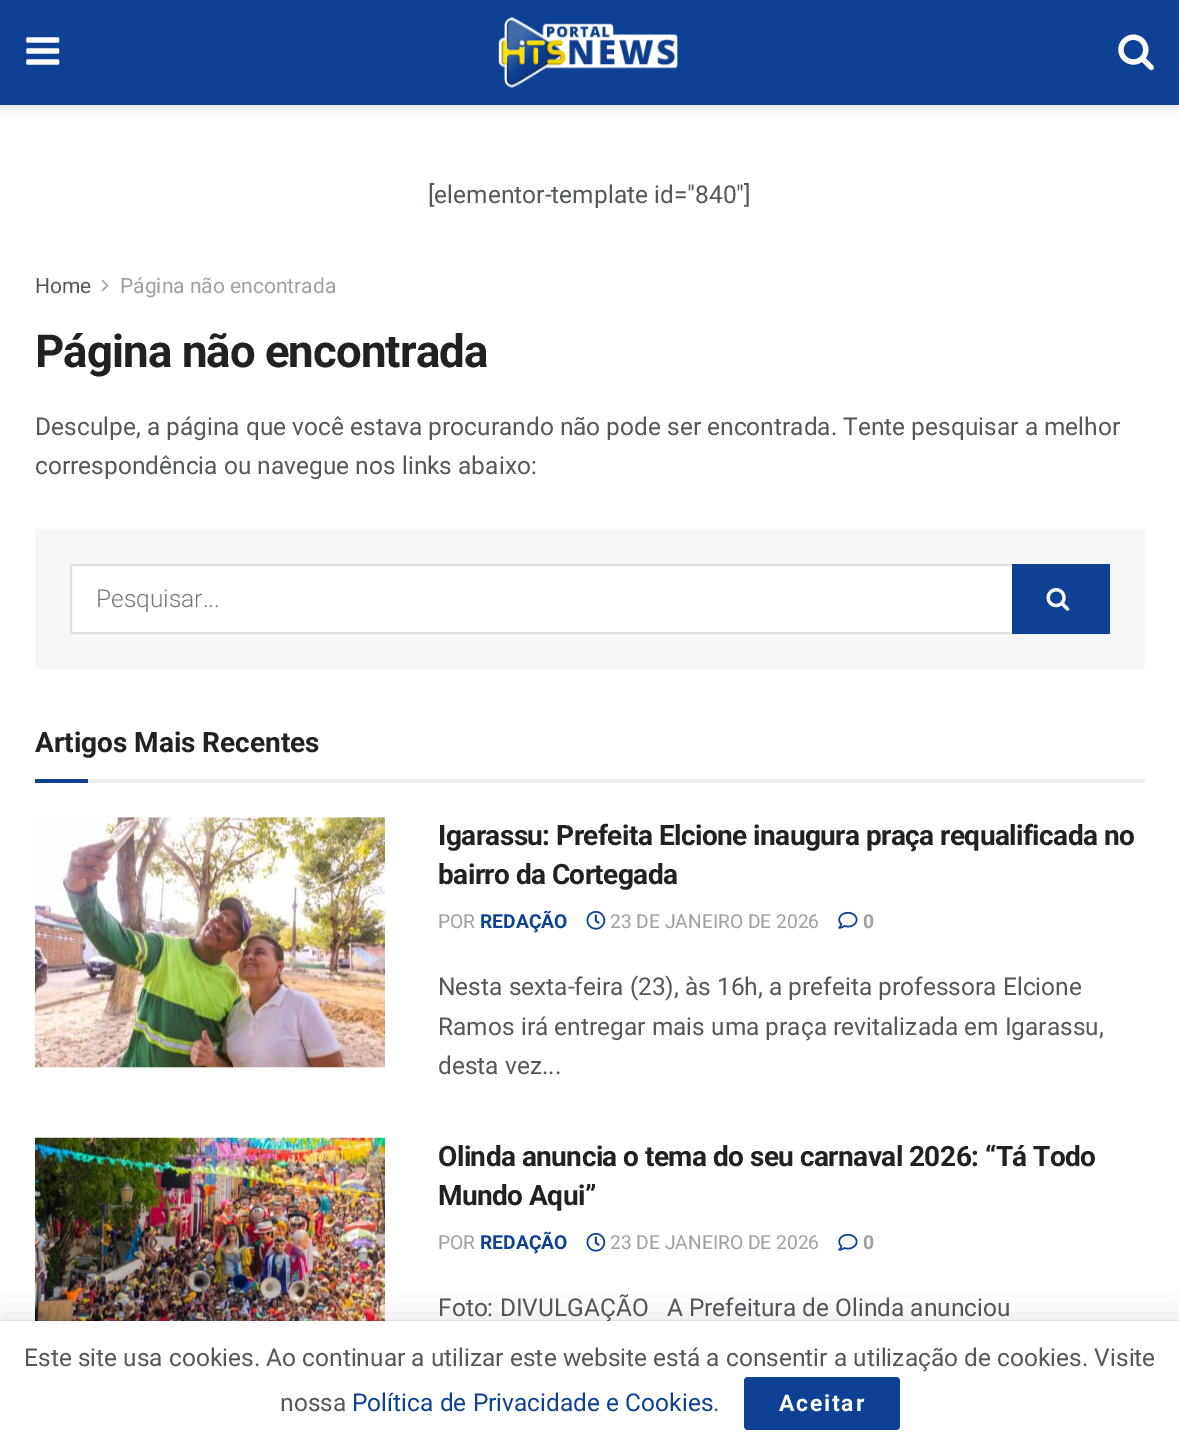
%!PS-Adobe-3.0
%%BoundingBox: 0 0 1179 1446
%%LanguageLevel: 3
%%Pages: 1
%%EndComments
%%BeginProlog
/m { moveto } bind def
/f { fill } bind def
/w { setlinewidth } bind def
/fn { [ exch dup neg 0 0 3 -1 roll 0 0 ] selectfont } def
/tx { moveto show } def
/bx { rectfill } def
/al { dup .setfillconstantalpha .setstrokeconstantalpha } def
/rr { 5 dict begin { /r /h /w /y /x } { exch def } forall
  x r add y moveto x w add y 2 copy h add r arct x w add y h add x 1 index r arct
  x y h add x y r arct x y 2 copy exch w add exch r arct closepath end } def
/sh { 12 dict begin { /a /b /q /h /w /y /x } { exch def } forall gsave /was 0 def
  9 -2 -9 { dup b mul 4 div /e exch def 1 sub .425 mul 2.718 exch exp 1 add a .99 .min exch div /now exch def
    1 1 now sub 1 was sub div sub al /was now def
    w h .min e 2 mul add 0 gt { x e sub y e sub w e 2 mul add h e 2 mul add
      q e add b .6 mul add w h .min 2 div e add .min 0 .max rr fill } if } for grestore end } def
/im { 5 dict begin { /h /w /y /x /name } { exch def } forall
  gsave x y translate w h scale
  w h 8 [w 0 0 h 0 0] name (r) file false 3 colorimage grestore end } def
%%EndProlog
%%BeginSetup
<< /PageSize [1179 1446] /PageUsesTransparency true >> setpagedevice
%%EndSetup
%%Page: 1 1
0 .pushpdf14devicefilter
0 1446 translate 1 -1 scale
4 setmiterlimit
1 setgray
0 0 1179 1446 bx
0 setgray
0 4 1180 105 0 5 0.1 sh
0.055 0.255 0.58 setrgbcolor
0 0 1179 105 bx
(image0.raw) 26 37 34 28 im
(image1.raw) 498 17 180 71 im
(image2.raw) 1118 34 36 37 im
/Roboto-Regular 24.5 fn
0.325 0.345 0.361 setrgbcolor
([elementor-template id="840"]) 428 203 tx
/Roboto-Regular 21 fn
(Home) 35 293 tx
(image3.raw) 101 279 8 13 im
0.627 setgray
(Página não encontrada) 120 293 tx
/Roboto-Bold 45.5 fn
0.129 setgray
35 367 m -0.9 0 (Página não encontrada) ashow
/Roboto-Regular 24.5 fn
0.325 0.345 0.361 setrgbcolor
(Desculpe, a página que você estava procurando não pode ser encontrada. Tente pesquisar a melhor) 35 435 tx
(correspondência ou navegue nos links abaixo:) 35 474 tx
0.969 setgray
35 529 1110 140 bx
1 setgray
72 566 940 66 bx
0.878 setgray
2 w
71 565 1038 68 rectstroke
/Roboto-Light 24.5 fn
0.459 setgray
(Pesquisar...) 96 607 tx
0.055 0.255 0.58 setrgbcolor
1012 564 98 70 bx
(image4.raw) 1046 588 24 23 im
0.933 setgray
88 779 1057 4 bx
/Roboto-Bold 28 fn
0.129 setgray
(Artigos Mais Recentes) 35 752 tx
0.055 0.255 0.58 setrgbcolor
35 779 53 4 bx
0.969 setgray
35 817 350 251 bx
(image5.raw) 35 817 350 251 im
0.129 setgray
438 845 m -0.55 0 (Igarassu: Prefeita Elcione inaugura praça requalificada no) ashow
438 884 m -0.55 0 (bairro da Cortegada) ashow
/Roboto-Regular 19.25 fn
0.627 setgray
(POR) 438 928 tx
/Roboto-Bold 19.25 fn
0.055 0.255 0.58 setrgbcolor
(REDAÇÃO) 480 928 tx
(image6.raw) 586 911 20 19 im
/Roboto-Regular 19.25 fn
0.627 setgray
(23 DE JANEIRO DE 2026) 610 928 tx
(image7.raw) 838 911 20 18 im
/Roboto-Bold 19.25 fn
(0) 863 928 tx
/Roboto-Regular 24.5 fn
0.325 0.345 0.361 setrgbcolor
(Nesta sexta-feira \(23\), às 16h, a prefeita professora Elcione) 438 995 tx
(Ramos irá entregar mais uma praça revitalizada em Igarassu,) 438 1035 tx
(desta vez...) 438 1074 tx
(image8.raw) 35 1137 350 184 im
/Roboto-Bold 28 fn
0.129 setgray
438 1166 m -0.55 0 (Olinda anuncia o tema do seu carnaval 2026: “Tá Todo) ashow
438 1205 m -0.55 0 (Mundo Aqui”) ashow
/Roboto-Regular 19.25 fn
0.627 setgray
(POR) 438 1249 tx
/Roboto-Bold 19.25 fn
0.055 0.255 0.58 setrgbcolor
(REDAÇÃO) 480 1249 tx
(image6.raw) 586 1233 20 19 im
/Roboto-Regular 19.25 fn
0.627 setgray
(23 DE JANEIRO DE 2026) 610 1249 tx
(image7.raw) 838 1233 20 18 im
/Roboto-Bold 19.25 fn
(0) 863 1249 tx
/Roboto-Regular 24.5 fn
0.325 0.345 0.361 setrgbcolor
(Foto: DIVULGAÇÃO   A Prefeitura de Olinda anunciou) 438 1316 tx
0 setgray
0 1325 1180 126 0 17.5 0.15 sh
0 1321 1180 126 0 1 0.2 sh
1 setgray
0 1321 1179 125 bx
0.325 0.345 0.361 setrgbcolor
(Este site usa cookies. Ao continuar a utilizar este website está a consentir a utilização de cookies. Visite) 24 1366 tx
(nossa) 280 1411 tx
0.055 0.255 0.58 setrgbcolor
(Política de Privacidade e Cookies) 352 1411 tx
0.325 0.345 0.361 setrgbcolor
(.) 713 1411 tx
0.055 0.255 0.58 setrgbcolor
744 1377 156 53 4 rr f
/Roboto-Bold 23 fn
1 setgray
779 1411 m 1.75 0 (Aceitar) ashow
.poppdf14devicefilter showpage
%%EOF
